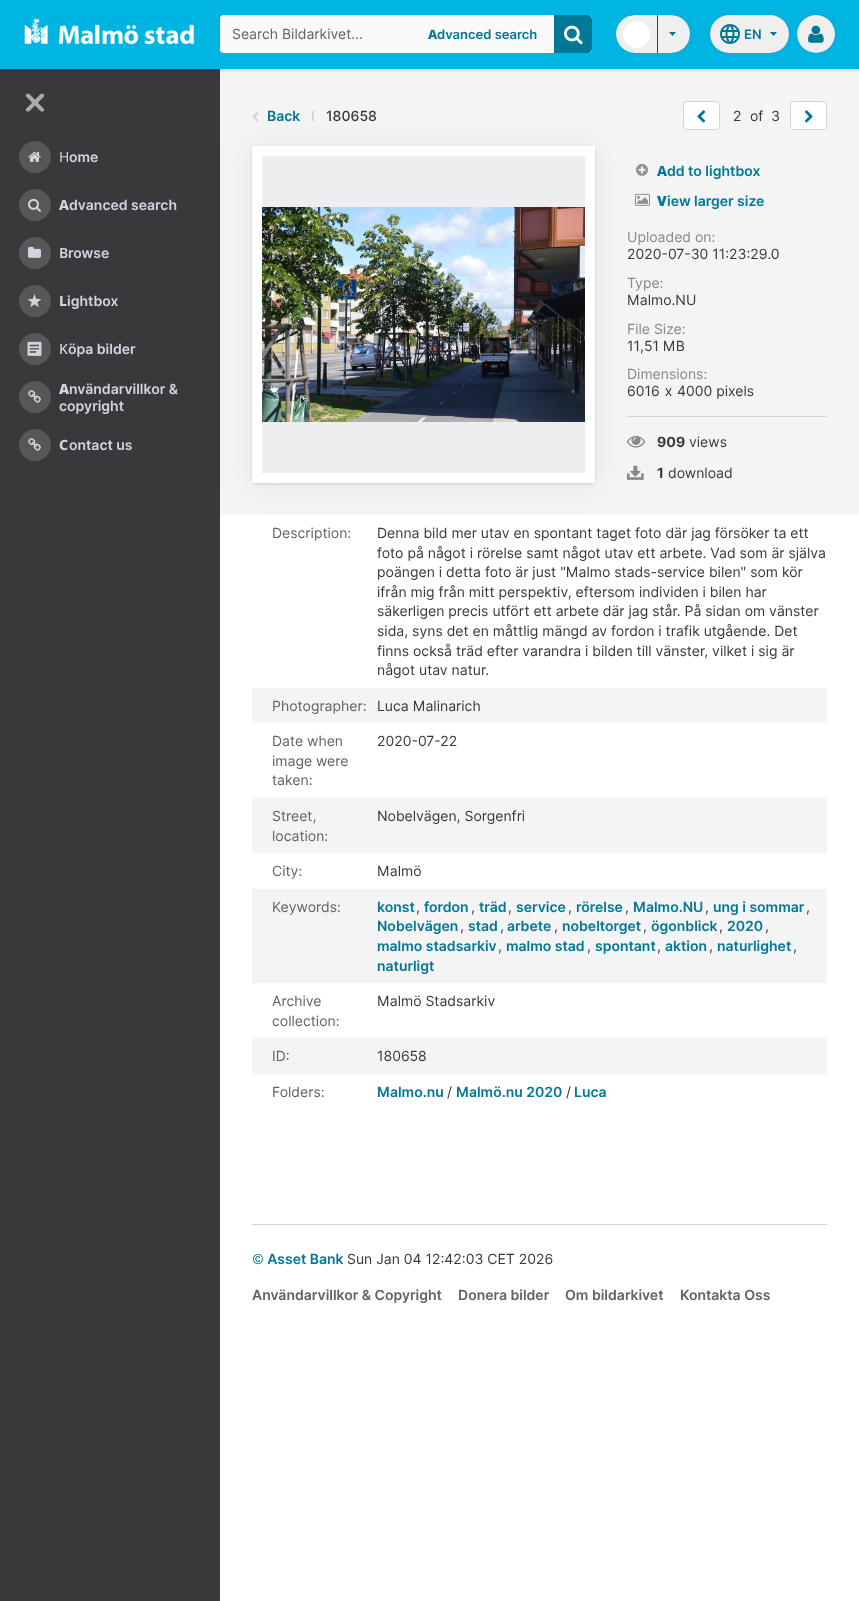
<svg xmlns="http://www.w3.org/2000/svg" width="859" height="1601">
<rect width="100%" height="100%" fill="#fff"/>
<rect x="220" y="69" width="639" height="446" fill="#f4f4f5"/>
<image x="252" y="112" width="7" height="10" href="media/11.png"/>
<rect x="312" y="111" width="2" height="10" fill="#d3d3df"/>
<rect x="627" y="416" width="200" height="1" fill="#d3d3df"/>
<image x="627" y="436" width="18" height="12" href="media/17.png"/>
<image x="627" y="465" width="17" height="15" href="media/18.png"/>
<rect x="252" y="148" width="343" height="337" rx="4" fill="#0000000f" filter="blur(17.5px)"/>
<rect y="69" width="220" height="1532" fill="#39393c"/>
<rect y="1" width="859" height="69" fill="#2d2d2d40" filter="blur(1.5px)"/>
<rect width="859" height="69" fill="#00b5e2"/>
<image x="24" y="18" width="170" height="27" href="media/1.png"/>
<rect x="220" y="15" width="372" height="38" rx="4" fill="#969696" filter="blur(0.5px)"/>
<rect x="220" y="15" width="372" height="38" rx="4" fill="#f9f9f9"/>
<text x="232" y="39" style="font-family:Inter;font-size:14px;fill:#62626a">Search Bildarkivet...</text>
<text x="428" y="39" style="font-family:Noto Sans;font-size:13px;font-weight:800;fill:#007896">A</text>
<text x="437" y="39" style="font-family:Inter;font-size:13px;font-weight:600;fill:#007896">dvanced search</text>
<path d="M554 15h34c2 0 4 2 4 4v30c0 2-2 4-4 4h-34z" fill="#007896"/>
<image x="564" y="25" width="19" height="20" href="media/2.png"/>
<rect x="616" y="15" width="74" height="38" rx="19" fill="#0000000d" filter="blur(3px)"/>
<rect x="616" y="15" width="74" height="38" rx="19" fill="#00000080" filter="blur(0.5px)"/>
<path d="M635 15h22v38h-22c-10.5 0-19-8.5-19-19c0-10.5 8.5-19 19-19z" fill="#efefef"/>
<circle cx="636.5" cy="34.5" r="13.5" fill="#fff"/>
<path d="M658 15h13c10.5 0 19 8.5 19 19c0 10.5-8.5 19-19 19h-13z" fill="#efefef"/>
<path d="M672.5 36l3.5-4h-7z" fill="#007896" fill-rule="evenodd"/>
<rect x="710" y="15" width="79" height="38" rx="19" fill="#0000000d" filter="blur(3px)"/>
<rect x="710" y="15" width="79" height="38" rx="19" fill="#00000080" filter="blur(0.5px)"/>
<rect x="710" y="15" width="79" height="38" rx="19" fill="#efefef"/>
<image x="720" y="24" width="20" height="20" href="media/3.png"/>
<text x="744" y="39" style="font-family:Inter;font-size:13px;font-weight:600;fill:#007896">EN</text>
<path d="M773.5 36l3.5-4h-7z" fill="#007896" fill-rule="evenodd"/>
<rect x="797" y="15" width="38" height="38" rx="19" fill="#0000000d" filter="blur(3px)"/>
<rect x="797" y="15" width="38" height="38" rx="19" fill="#00000080" filter="blur(0.5px)"/>
<circle cx="816" cy="34" r="19" fill="#efefef"/>
<image x="808" y="25" width="16" height="18" href="media/4.png"/>
<path d="M29.5 94l14 14.5c1 .5 1 2 0 2.5c-1 1-2 1-3 0l-14-14c-1-1-1-2 0-3c1-.5 2-.5 3 0z" fill="#aaa"/>
<path d="M26.5 108.5l14-14.5c1-.5 2-.5 3 0c1 1 1 2 0 3l-14 14c-1 1-2 1-3 0c-1-.5-1-2 0-2.5z" fill="#aaa"/>
<circle cx="35" cy="157" r="16" fill="#575757"/>
<image x="28" y="151" width="13" height="11" href="media/5.png"/>
<text x="59" y="162" style="font-family:Noto Sans;font-size:14px;fill:#d3d3df">H</text>
<text x="69" y="162" style="font-family:Inter;font-size:14px;font-weight:600;fill:#d3d3df">ome</text>
<circle cx="35" cy="205" r="16" fill="#575757"/>
<image x="28" y="198" width="13" height="14" href="media/6.png"/>
<text x="59" y="210" style="font-family:Noto Sans;font-size:14px;font-weight:800;fill:#d3d3df">A</text>
<text x="69" y="210" style="font-family:Inter;font-size:14px;font-weight:600;fill:#d3d3df">dvanced search</text>
<circle cx="35" cy="253" r="16" fill="#575757"/>
<image x="28" y="246" width="13" height="12" href="media/7.png"/>
<text x="59" y="258" style="font-family:Noto Sans;font-size:14px;font-weight:600;fill:#d3d3df">B</text>
<text x="68" y="258" style="font-family:Inter;font-size:14px;font-weight:600;fill:#d3d3df">rowse</text>
<circle cx="35" cy="301" r="16" fill="#575757"/>
<image x="27" y="294" width="15" height="14" href="media/8.png"/>
<text x="59" y="306" style="font-family:Noto Sans;font-size:14px;font-weight:800;fill:#d3d3df">L</text>
<text x="67" y="306" style="font-family:Inter;font-size:14px;font-weight:600;fill:#d3d3df">ightbox</text>
<circle cx="35" cy="349" r="16" fill="#575757"/>
<image x="27" y="341" width="15" height="15" href="media/9.png"/>
<text x="59" y="354" style="font-family:Noto Sans;font-size:14px;font-weight:500;fill:#d3d3df">K</text>
<text x="68" y="354" style="font-family:Inter;font-size:14px;font-weight:600;fill:#d3d3df">öpa bilder</text>
<circle cx="35" cy="397" r="16" fill="#575757"/>
<image x="28" y="390" width="13" height="13" href="media/10.png"/>
<text x="59" y="394" style="font-family:Noto Sans;font-size:14px;font-weight:900;fill:#d3d3df">A</text>
<text x="69" y="394" style="font-family:Inter;font-size:14px;font-weight:600;fill:#d3d3df">nvändarvillkor &amp;</text>
<text x="59" y="411" style="font-family:Inter;font-size:14px;font-weight:600;fill:#d3d3df">copyright</text>
<circle cx="35" cy="445" r="16" fill="#575757"/>
<image x="28" y="438" width="13" height="13" href="media/10.png"/>
<text x="59" y="450" style="font-family:Noto Sans;font-size:14px;font-weight:800;fill:#d3d3df">C</text>
<text x="69" y="450" style="font-family:Inter;font-size:14px;font-weight:600;fill:#d3d3df">ontact us</text>
<text x="267" y="121" style="font-family:Inter;font-size:14px;font-weight:600;fill:#007896">Back</text>
<text x="326" y="121" style="font-family:Inter;font-size:14px;font-weight:500;fill:#39393c">180658</text>
<rect x="683.5" y="101.5" width="36" height="28" rx="3.5" fill="#fff" stroke="#d3d3df"/>
<image x="697" y="110" width="9" height="13" href="media/12.png"/>
<text x="733" y="121" style="font-family:Inter;font-size:14px;fill:#39393c">2</text>
<text x="750" y="121" style="font-family:Inter;font-size:14px;fill:#39393c">of</text>
<text x="771" y="121" style="font-family:Inter;font-size:14px;fill:#39393c">3</text>
<rect x="790.5" y="101.5" width="36" height="28" rx="3.5" fill="#fff" stroke="#d3d3df"/>
<image x="804" y="110" width="9" height="13" href="media/13.png"/>
<rect x="252" y="147" width="343" height="337" rx="4" fill="#00000021" filter="blur(1.5px)"/>
<rect x="262" y="156" width="323" height="317" fill="#eeeef1"/>
<path d="M257 151h333v327h-333z" fill="none" stroke="#fff" stroke-width="10"/>
<image x="262" y="207" width="323" height="215" href="media/14.png"/>
<image x="636" y="163" width="12" height="13" href="media/15.png"/>
<text x="657" y="176" style="font-family:Noto Sans;font-size:14px;font-weight:800;fill:#007896">A</text>
<text x="667" y="176" style="font-family:Inter;font-size:14px;font-weight:600;fill:#007896">dd to lightbox</text>
<image x="635" y="193" width="15" height="13" href="media/16.png"/>
<text x="657" y="206" style="font-family:Noto Sans;font-size:14px;font-weight:900;fill:#007896">V</text>
<text x="667" y="206" style="font-family:Inter;font-size:14px;font-weight:600;fill:#007896">iew larger size</text>
<text x="627" y="242" style="font-family:Inter;font-size:14px;fill:#888">Uploaded on:</text>
<text x="627" y="259" style="font-family:Inter;font-size:14px;fill:#39393c">2020-07-30 11:23:29.0</text>
<text x="627" y="288" style="font-family:Inter;font-size:14px;fill:#888">Type:</text>
<text x="627" y="305" style="font-family:Inter;font-size:14px;fill:#39393c">Malmo.NU</text>
<text x="627" y="334" style="font-family:Inter;font-size:14px;fill:#888">File Size:</text>
<text x="627" y="351" style="font-family:Inter;font-size:14px;fill:#39393c">11,51 MB</text>
<text x="627" y="379" style="font-family:Inter;font-size:14px;fill:#888">Dimensions:</text>
<text x="627" y="396" word-spacing="1" style="font-family:Inter;font-size:14px;fill:#39393c">6016 x</text>
<text x="677" y="396" style="font-family:Inter;font-size:14px;fill:#39393c">4000 pixels</text>
<text x="657" y="447" style="font-family:Inter;font-size:14px;font-weight:bold;fill:#39393c">909</text>
<text x="689" y="447" style="font-family:Inter;font-size:14px;fill:#39393c">views</text>
<text x="657" y="478" style="font-family:Inter;font-size:14px;font-weight:bold;fill:#39393c">1</text>
<text x="668" y="478" style="font-family:Inter;font-size:14px;fill:#39393c">download</text>
<text x="272" y="538" style="font-family:Inter;font-size:14px;fill:#62626a">Description:</text>
<text x="377" y="538" style="font-family:Inter;font-size:14px;fill:#39393c">Denna bild mer utav en spontant taget foto där jag försöker ta ett</text>
<text x="377" y="558" style="font-family:Inter;font-size:14px;fill:#39393c">foto på något i rörelse samt något utav ett arbete. Vad som är själva</text>
<text x="377" y="577" style="font-family:Inter;font-size:14px;fill:#39393c">poängen i detta foto är just "Malmo stads-service bilen" som kör</text>
<text x="377" y="597" style="font-family:Inter;font-size:14px;fill:#39393c">ifrån mig från mitt perspektiv, eftersom individen i bilen har</text>
<text x="377" y="616" style="font-family:Inter;font-size:14px;fill:#39393c">säkerligen precis utfört ett arbete där jag står. På sidan om vänster</text>
<text x="377" y="636" style="font-family:Inter;font-size:14px;fill:#39393c">sida, syns det en måttlig mängd av fordon i trafik utgående. Det</text>
<text x="377" y="656" style="font-family:Inter;font-size:14px;fill:#39393c">finns också träd efter varandra i bilden till vänster, vilket i sig är</text>
<text x="377" y="675" style="font-family:Inter;font-size:14px;fill:#39393c">något utav natur.</text>
<rect x="252" y="688" width="575" height="35" fill="#f4f4f5"/>
<text x="272" y="711" style="font-family:Inter;font-size:14px;fill:#62626a">Photographer:</text>
<text x="377" y="711" style="font-family:Inter;font-size:14px;fill:#39393c">Luca Malinarich</text>
<text x="272" y="746" style="font-family:Inter;font-size:14px;fill:#62626a">Date when</text>
<text x="272" y="766" style="font-family:Inter;font-size:14px;fill:#62626a">image were</text>
<text x="272" y="785" style="font-family:Inter;font-size:14px;fill:#62626a">taken:</text>
<text x="377" y="746" style="font-family:Inter;font-size:14px;fill:#39393c">2020-07-22</text>
<rect x="252" y="798" width="575" height="55" fill="#f4f4f5"/>
<text x="272" y="821" style="font-family:Inter;font-size:14px;fill:#62626a">Street,</text>
<text x="272" y="841" style="font-family:Inter;font-size:14px;fill:#62626a">location:</text>
<text x="377" y="821" style="font-family:Inter;font-size:14px;fill:#39393c">Nobelvägen, Sorgenfri</text>
<text x="272" y="876" style="font-family:Inter;font-size:14px;fill:#62626a">City:</text>
<text x="377" y="876" style="font-family:Inter;font-size:14px;fill:#39393c">Malmö</text>
<rect x="252" y="889" width="575" height="94" fill="#f4f4f5"/>
<text x="272" y="912" style="font-family:Inter;font-size:14px;fill:#62626a">Keywords:</text>
<text x="377" y="912" style="font-family:Inter;font-size:14px;font-weight:600;fill:#007896">konst</text>
<text x="416" y="912" style="font-family:Inter;font-size:14px;fill:#39393c">,</text>
<text x="424" y="912" style="font-family:Inter;font-size:14px;font-weight:600;fill:#007896">fordon</text>
<text x="471" y="912" style="font-family:Inter;font-size:14px;fill:#39393c">,</text>
<text x="479" y="912" style="font-family:Inter;font-size:14px;font-weight:600;fill:#007896">träd</text>
<text x="508" y="912" style="font-family:Inter;font-size:14px;fill:#39393c">,</text>
<text x="516" y="912" style="font-family:Inter;font-size:14px;font-weight:600;fill:#007896">service</text>
<text x="568" y="912" style="font-family:Inter;font-size:14px;fill:#39393c">,</text>
<text x="576" y="912" style="font-family:Inter;font-size:14px;font-weight:600;fill:#007896">rörelse</text>
<text x="625" y="912" style="font-family:Inter;font-size:14px;fill:#39393c">,</text>
<text x="633" y="912" style="font-family:Inter;font-size:14px;font-weight:600;fill:#007896">Malmo.NU</text>
<text x="705" y="912" style="font-family:Inter;font-size:14px;fill:#39393c">,</text>
<text x="713" y="912" style="font-family:Inter;font-size:14px;font-weight:600;fill:#007896">ung i sommar</text>
<text x="806" y="912" style="font-family:Inter;font-size:14px;fill:#39393c">,</text>
<text x="377" y="931" style="font-family:Inter;font-size:14px;font-weight:600;fill:#007896">Nobelvägen</text>
<text x="460" y="931" style="font-family:Inter;font-size:14px;fill:#39393c">,</text>
<text x="468" y="931" style="font-family:Inter;font-size:14px;font-weight:600;fill:#007896">stad</text>
<text x="500" y="931" style="font-family:Inter;font-size:14px;fill:#39393c">,</text>
<text x="507" y="931" style="font-family:Inter;font-size:14px;font-weight:600;fill:#007896">arbete</text>
<text x="554" y="931" style="font-family:Inter;font-size:14px;fill:#39393c">,</text>
<text x="562" y="931" style="font-family:Inter;font-size:14px;font-weight:600;fill:#007896">nobeltorget</text>
<text x="643" y="931" style="font-family:Inter;font-size:14px;fill:#39393c">,</text>
<text x="651" y="931" style="font-family:Inter;font-size:14px;font-weight:600;fill:#007896">ögonblick</text>
<text x="719" y="931" style="font-family:Inter;font-size:14px;fill:#39393c">,</text>
<text x="727" y="931" style="font-family:Inter;font-size:14px;font-weight:600;fill:#007896">2020</text>
<text x="765" y="931" style="font-family:Inter;font-size:14px;fill:#39393c">,</text>
<text x="377" y="951" style="font-family:Inter;font-size:14px;font-weight:600;fill:#007896">malmo stadsarkiv</text>
<text x="498" y="951" style="font-family:Inter;font-size:14px;fill:#39393c">,</text>
<text x="506" y="951" style="font-family:Inter;font-size:14px;font-weight:600;fill:#007896">malmo stad</text>
<text x="587" y="951" style="font-family:Inter;font-size:14px;fill:#39393c">,</text>
<text x="595" y="951" style="font-family:Inter;font-size:14px;font-weight:600;fill:#007896">spontant</text>
<text x="657" y="951" style="font-family:Inter;font-size:14px;fill:#39393c">,</text>
<text x="665" y="951" style="font-family:Inter;font-size:14px;font-weight:600;fill:#007896">aktion</text>
<text x="709" y="951" style="font-family:Inter;font-size:14px;fill:#39393c">,</text>
<text x="717" y="951" style="font-family:Inter;font-size:14px;font-weight:600;fill:#007896">naturlighet</text>
<text x="793" y="951" style="font-family:Inter;font-size:14px;fill:#39393c">,</text>
<text x="377" y="971" style="font-family:Inter;font-size:14px;font-weight:600;fill:#007896">naturligt</text>
<text x="272" y="1006" style="font-family:Inter;font-size:14px;fill:#62626a">Archive</text>
<text x="272" y="1026" style="font-family:Inter;font-size:14px;fill:#62626a">collection:</text>
<text x="377" y="1006" style="font-family:Inter;font-size:14px;fill:#39393c">Malmö Stadsarkiv</text>
<rect x="252" y="1038" width="575" height="36" fill="#f4f4f5"/>
<text x="272" y="1061" style="font-family:Inter;font-size:14px;fill:#62626a">ID:</text>
<text x="377" y="1061" style="font-family:Inter;font-size:14px;fill:#39393c">180658</text>
<text x="272" y="1097" style="font-family:Inter;font-size:14px;fill:#62626a">Folders:</text>
<text x="377" y="1097" style="font-family:Inter;font-size:14px;font-weight:600;fill:#007896">Malmo.nu</text>
<text x="447" y="1097" style="font-family:Inter;font-size:14px;fill:#39393c">/</text>
<text x="456" y="1097" style="font-family:Inter;font-size:14px;font-weight:600;fill:#007896">Malmö.nu 2020</text>
<text x="566" y="1097" style="font-family:Inter;font-size:14px;fill:#39393c">/</text>
<text x="574" y="1097" style="font-family:Inter;font-size:14px;font-weight:600;fill:#007896">Luca</text>
<rect x="252" y="1224" width="575" height="1" fill="#d3d3df"/>
<text x="252" y="1264" style="font-family:Inter;font-size:14px;font-weight:600;fill:#007896">© Asset Bank</text>
<text x="347" y="1264" style="font-family:Inter;font-size:14px;fill:#39393c">Sun Jan 04 12:42:03 CET 2026</text>
<text x="252" y="1300" style="font-family:Inter;font-size:14px;font-weight:600;fill:#62626a">Användarvillkor &amp; Copyright</text>
<text x="458" y="1300" style="font-family:Inter;font-size:14px;font-weight:600;fill:#62626a">Donera bilder</text>
<text x="565" y="1300" style="font-family:Inter;font-size:14px;font-weight:600;fill:#62626a">Om bildarkivet</text>
<text x="680" y="1300" style="font-family:Inter;font-size:14px;font-weight:600;fill:#62626a">Kontakta Oss</text>
</svg>
